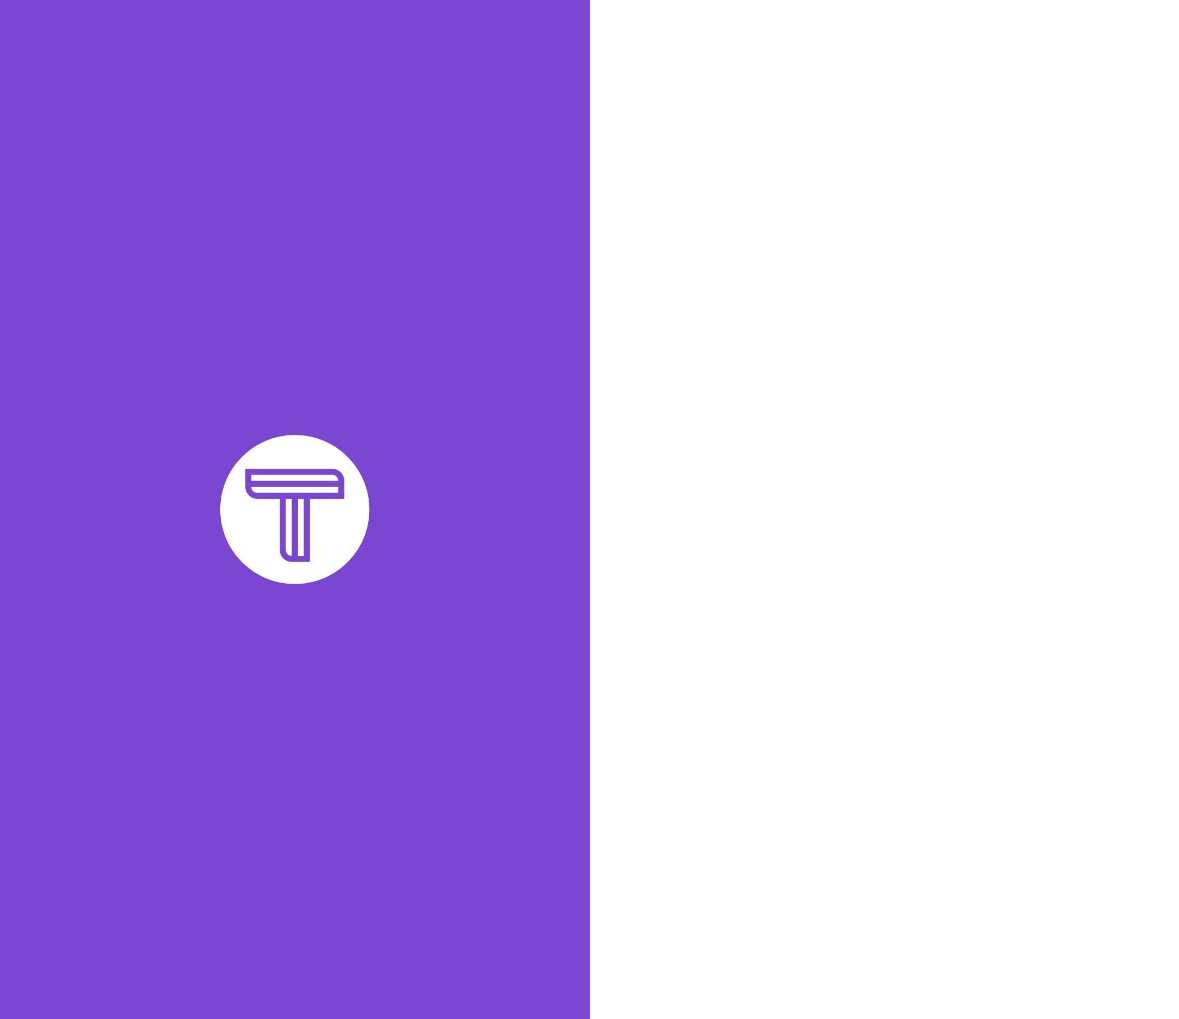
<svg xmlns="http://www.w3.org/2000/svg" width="1179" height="1019">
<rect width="100%" height="100%" fill="#fff"/>
<image x="0" y="0" width="590" height="1019" href="media/1.png"/>
</svg>
